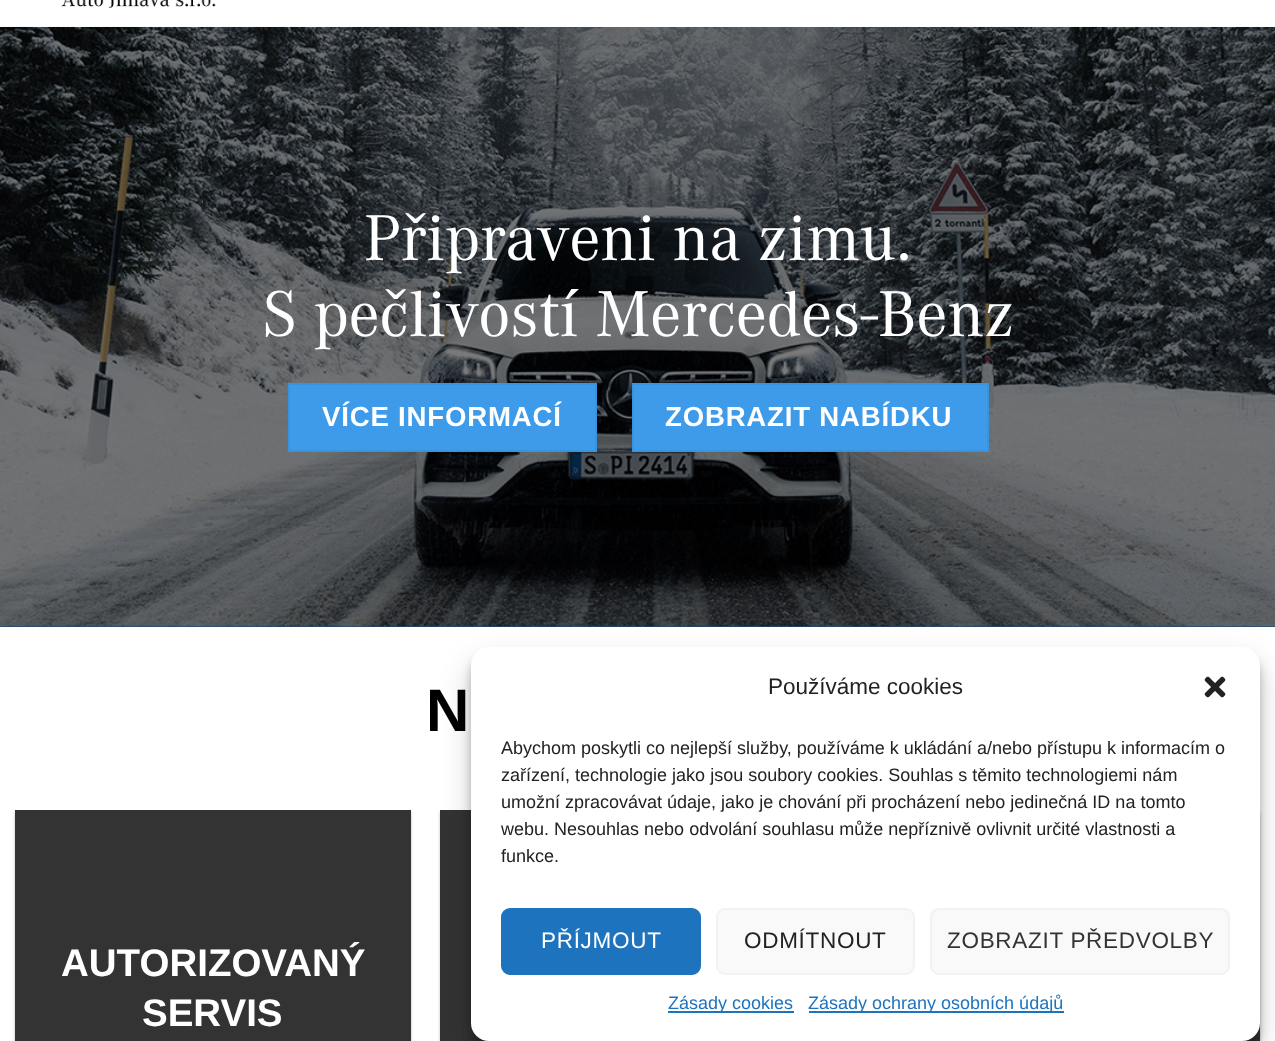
<svg xmlns="http://www.w3.org/2000/svg" width="1275" height="1041">
<rect width="100%" height="100%" fill="#fff"/>
<image x="61" y="0" width="155" height="8" href="media/1.png"/>
<rect y="626" width="1275" height="1" fill="#1d4a70"/>
<image x="0" y="26" width="1275" height="601" href="media/2.png"/>
<rect y="26" width="1275" height="1" fill="#ffffffe6"/>
<text x="364" y="260" style="font-family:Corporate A;font-size:67.25px;fill:#fff">Připraveni na zimu.</text>
<text x="262" y="336" style="font-family:Corporate A;font-size:67.25px;fill:#fff">S pečlivostí Mercedes-Benz</text>
<rect x="289" y="384" width="307" height="67" fill="#3d9be9" stroke="#3a93dd" stroke-width="2"/>
<text x="322" y="426" style="font-family:Liberation Sans;font-size:27.6px;font-weight:bold;letter-spacing:0.8px;fill:#fff">VÍCE INFORMACÍ</text>
<rect x="633" y="384" width="355" height="67" fill="#3d9be9" stroke="#3a93dd" stroke-width="2"/>
<text x="665" y="426" style="font-family:Liberation Sans;font-size:27.6px;font-weight:bold;letter-spacing:0.8px;fill:#fff">ZOBRAZIT NABÍDKU</text>
<text x="426" y="731" style="font-family:Liberation Sans;font-size:60px;font-weight:bold;fill:#000">N</text>
<rect x="15" y="812" width="396" height="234" fill="#0000003d" filter="blur(1.5px)"/>
<rect x="15" y="810" width="396" height="231" fill="#333"/>
<text x="61" y="976" style="font-family:Liberation Sans;font-size:38.5px;font-weight:bold;fill:#fff">AUTORIZOVANÝ</text>
<text x="142" y="1026" style="font-family:Liberation Sans;font-size:38.5px;font-weight:bold;fill:#fff">SERVIS</text>
<rect x="440" y="812" width="396" height="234" fill="#0000003d" filter="blur(1.5px)"/>
<rect x="440" y="810" width="49" height="231" fill="#333"/>
<rect x="864" y="812" width="396" height="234" fill="#0000003d" filter="blur(1.5px)"/>
<rect x="1242" y="1023" width="18" height="18" fill="#333"/>
<rect x="471" y="656" width="789" height="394" rx="18" fill="#0000003b" filter="blur(4.5px)"/>
<rect x="471" y="662" width="789" height="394" rx="18" fill="#00000030" filter="blur(15px)"/>
<rect x="471" y="647" width="789" height="394" rx="18" fill="#fff"/>
<text x="768" y="694" style="font-family:Liberation Sans;font-size:22.5px;fill:#222">Používáme cookies</text>
<image x="1204" y="676" width="22" height="22" href="media/3.png"/>
<text x="501" y="754" style="font-family:Liberation Sans;font-size:18px;fill:#222">Abychom poskytli co nejlepší služby, používáme k ukládání a/nebo přístupu k informacím o</text>
<text x="501" y="781" style="font-family:Liberation Sans;font-size:18px;fill:#222">zařízení, technologie jako jsou soubory cookies. Souhlas s těmito technologiemi nám</text>
<text x="501" y="808" style="font-family:Liberation Sans;font-size:18px;fill:#222">umožní zpracovávat údaje, jako je chování při procházení nebo jedinečná ID na tomto</text>
<text x="501" y="835" style="font-family:Liberation Sans;font-size:18px;fill:#222">webu. Nesouhlas nebo odvolání souhlasu může nepříznivě ovlivnit určité vlastnosti a</text>
<text x="501" y="862" style="font-family:Liberation Sans;font-size:18px;fill:#222">funkce.</text>
<rect x="502" y="909" width="198" height="65" rx="8" fill="#1e73be" stroke="#1e73be" stroke-width="2"/>
<text x="541" y="948" style="font-family:Liberation Sans;font-size:22.5px;letter-spacing:0.7px;fill:#fff">PŘÍJMOUT</text>
<rect x="717" y="909" width="197" height="65" rx="8" fill="#f9f9f9" stroke="#f2f2f2" stroke-width="2"/>
<text x="744" y="948" style="font-family:Liberation Sans;font-size:22.5px;letter-spacing:0.7px;fill:#222">ODMÍTNOUT</text>
<rect x="931" y="909" width="298" height="65" rx="8" fill="#f9f9f9" stroke="#f2f2f2" stroke-width="2"/>
<text x="947" y="948" style="font-family:Liberation Sans;font-size:22.5px;letter-spacing:0.7px;fill:#333">ZOBRAZIT PŘEDVOLBY</text>
<rect x="668" y="1011" width="126" height="2" fill="#1e73be"/>
<text x="668" y="1009" style="font-family:Liberation Sans;font-size:18px;fill:#1e73be">Zásady cookies</text>
<rect x="809" y="1011" width="255" height="2" fill="#1e73be"/>
<text x="808" y="1009" style="font-family:Liberation Sans;font-size:18px;fill:#1e73be">Zásady ochrany osobních údajů</text>
</svg>
